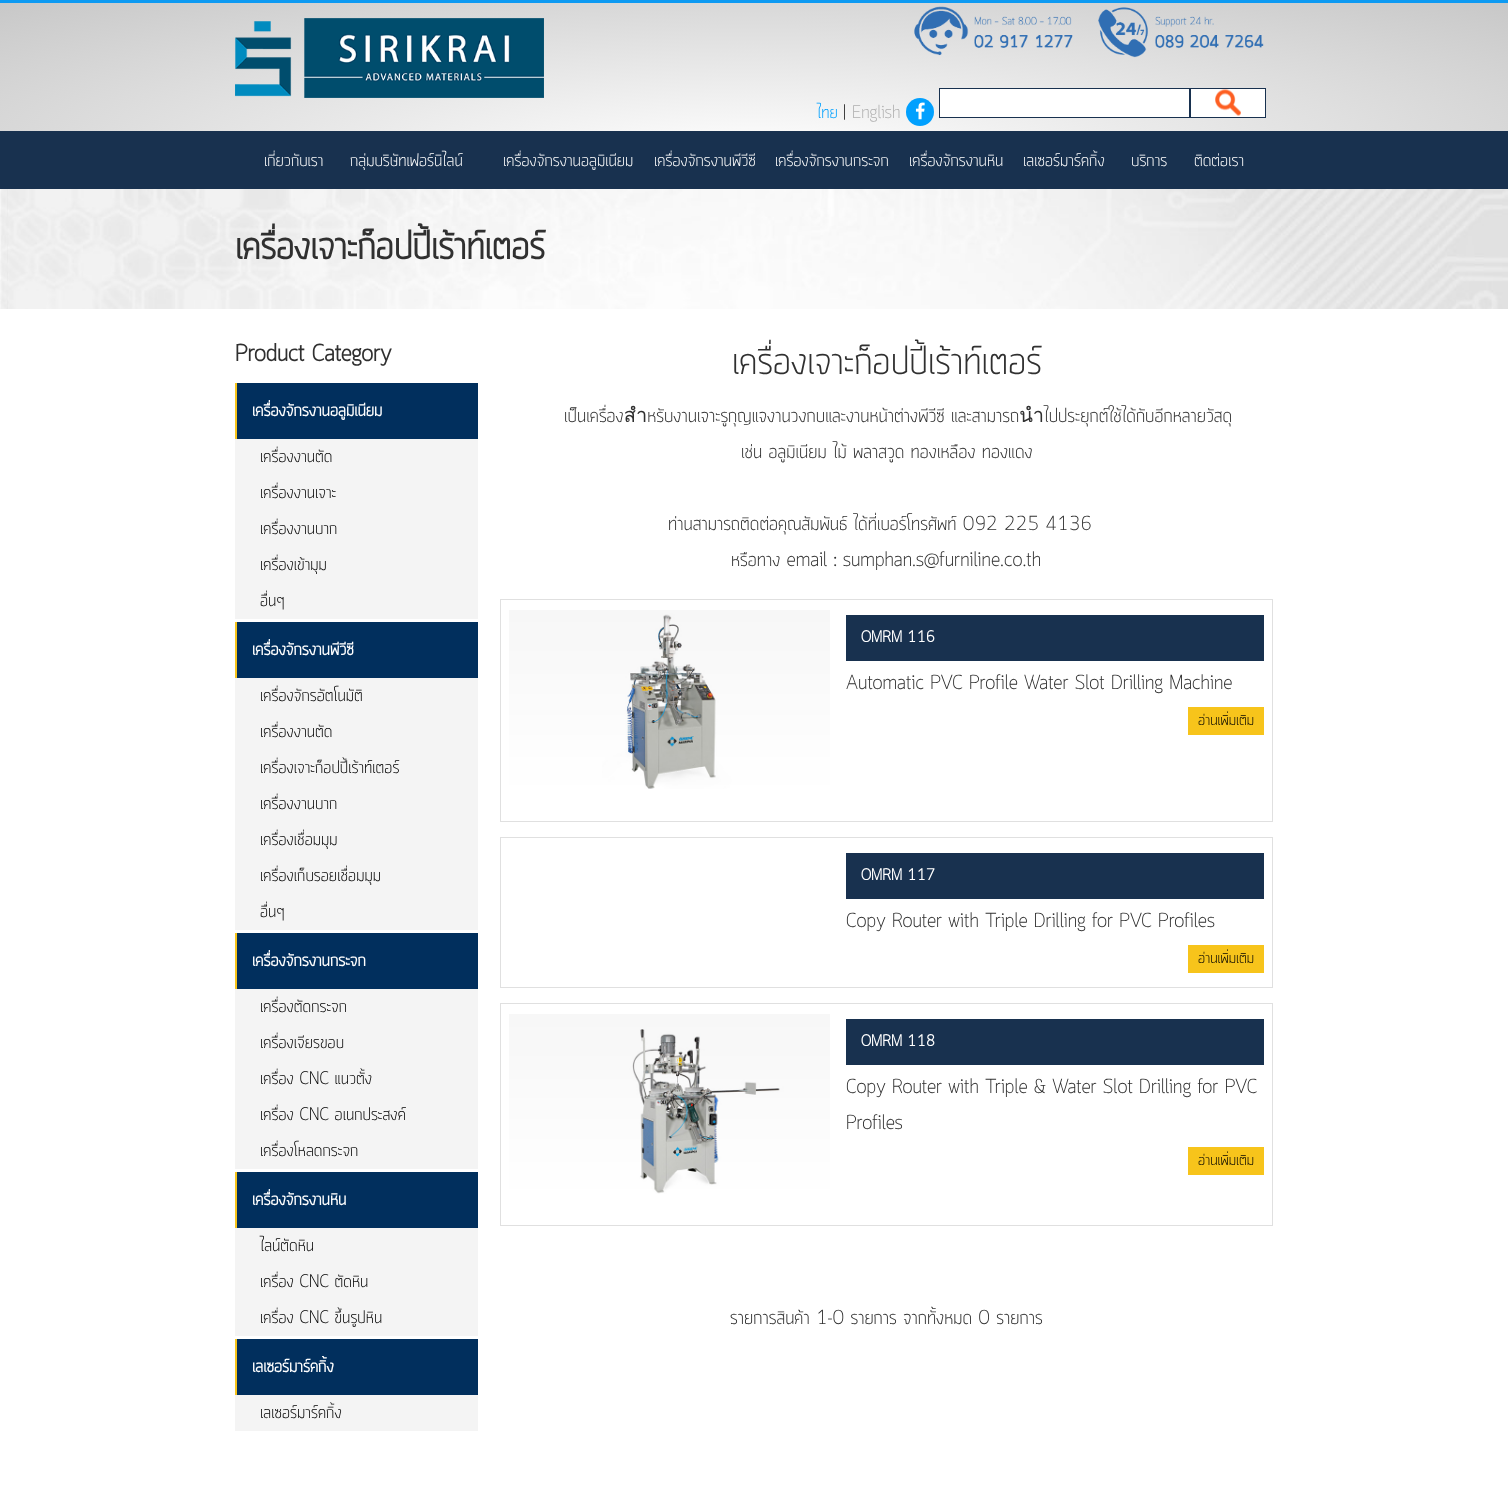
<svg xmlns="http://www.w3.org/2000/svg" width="1508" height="1504">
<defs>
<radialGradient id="g1" gradientUnits="userSpaceOnUse" cx="0" cy="0" r="1" gradientTransform="matrix(1066 0 0 216 754 156)"><stop offset="0" stop-color="#fff"/><stop offset="1" stop-color="#c8c8c8"/></radialGradient>
</defs>
<rect width="100%" height="100%" fill="#fff"/>
<rect y="3" width="1508" height="128" fill="url(#g1)"/>
<rect width="1508" height="3" fill="#0d9af2"/>
<image x="235" y="18" width="309" height="80" href="media/1.png"/>
<image x="914" y="6" width="159" height="50" href="media/2.png"/>
<image x="1098" y="7" width="166" height="51" href="media/3.png"/>
<text x="817" y="118" style="font-family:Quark;font-size:18px;font-weight:300;fill:#01a0fe">ไทย</text>
<text x="843" y="118" style="font-family:Quark;font-size:18px;font-weight:300;fill:#111">|</text>
<text x="852" y="118" style="font-family:Quark;font-size:18px;font-weight:300;fill:#b0b0b0">English</text>
<circle cx="920" cy="112" r="14" fill="#01a0fe"/>
<image x="915" y="102" width="10" height="18" href="media/4.png"/>
<rect x="939.5" y="88.5" width="250" height="29" fill="#fff" stroke="#18314f"/>
<rect x="1191" y="89" width="74" height="28" fill="#fff"/>
<image x="1215" y="89" width="26" height="27" href="media/5.png"/>
<rect x="1190.5" y="88.5" width="75" height="29" fill="none" stroke="#18314f"/>
<rect y="131" width="1508" height="58" fill="#18314f"/>
<text x="264" y="166" style="font-family:Quark;font-size:18px;font-weight:300;fill:#fff">เกี่ยวกับเรา</text>
<text x="350" y="166" style="font-family:Quark;font-size:18px;font-weight:300;fill:#fff">กลุ่มบริษัทเฟอร์นิไลน์</text>
<text x="503" y="166" style="font-family:Quark;font-size:18px;font-weight:300;fill:#fff">เครื่องจักรงานอลูมิเนียม</text>
<text x="654" y="166" style="font-family:Quark;font-size:18px;font-weight:300;fill:#fff">เครื่องจักรงานพีวีซี</text>
<text x="775" y="166" style="font-family:Quark;font-size:18px;font-weight:300;fill:#fff">เครื่องจักรงานกระจก</text>
<text x="909" y="166" style="font-family:Quark;font-size:18px;font-weight:300;fill:#fff">เครื่องจักรงานหิน</text>
<text x="1023" y="166" style="font-family:Quark;font-size:18px;font-weight:300;fill:#fff">เลเซอร์มาร์คกิ้ง</text>
<text x="1131" y="166" style="font-family:Quark;font-size:18px;font-weight:300;fill:#fff">บริการ</text>
<text x="1194" y="166" style="font-family:Quark;font-size:18px;font-weight:300;fill:#fff">ติดต่อเรา</text>
<image x="0" y="189" width="1508" height="120" href="media/6.png"/>
<text x="235" y="259" style="font-family:Quark;font-size:40px;font-weight:bold;fill:#303030">เครื่องเจาะก็อปปี้เร้าท์เตอร์</text>
<text x="235" y="361" style="font-family:Quark;font-size:23.5px;font-weight:bold;fill:#303030">Product Category</text>
<rect x="235" y="439" width="243" height="180" fill="#f4f4f4"/>
<rect x="237" y="383" width="241" height="56" fill="#012f5d"/>
<rect x="235" y="383" width="2" height="56" fill="#f7c41b"/>
<text x="252" y="416" style="font-family:Quark;font-size:18px;font-weight:bold;fill:#fff">เครื่องจักรงานอลูมิเนียม</text>
<text x="260" y="462" style="font-family:Quark;font-size:18px;font-weight:300;fill:#000">เครื่องงานตัด</text>
<text x="260" y="498" style="font-family:Quark;font-size:18px;font-weight:300;fill:#000">เครื่องงานเจาะ</text>
<text x="260" y="534" style="font-family:Quark;font-size:18px;font-weight:300;fill:#000">เครื่องงานบาก</text>
<text x="260" y="570" style="font-family:Quark;font-size:18px;font-weight:300;fill:#000">เครื่องเข้ามุม</text>
<text x="260" y="606" style="font-family:Quark;font-size:18px;font-weight:300;fill:#000">อื่นๆ</text>
<rect x="235" y="678" width="243" height="252" fill="#f4f4f4"/>
<rect x="237" y="622" width="241" height="56" fill="#012f5d"/>
<rect x="235" y="622" width="2" height="56" fill="#f7c41b"/>
<text x="252" y="655" style="font-family:Quark;font-size:18px;font-weight:bold;fill:#fff">เครื่องจักรงานพีวีซี</text>
<text x="260" y="701" style="font-family:Quark;font-size:18px;font-weight:300;fill:#000">เครื่องจักรอัตโนมัติ</text>
<text x="260" y="737" style="font-family:Quark;font-size:18px;font-weight:300;fill:#000">เครื่องงานตัด</text>
<text x="260" y="773" style="font-family:Quark;font-size:18px;font-weight:300;fill:#000">เครื่องเจาะก็อปปี้เร้าท์เตอร์</text>
<text x="260" y="809" style="font-family:Quark;font-size:18px;font-weight:300;fill:#000">เครื่องงานบาก</text>
<text x="260" y="845" style="font-family:Quark;font-size:18px;font-weight:300;fill:#000">เครื่องเชื่อมมุม</text>
<text x="260" y="881" style="font-family:Quark;font-size:18px;font-weight:300;fill:#000">เครื่องเก็บรอยเชื่อมมุม</text>
<text x="260" y="917" style="font-family:Quark;font-size:18px;font-weight:300;fill:#000">อื่นๆ</text>
<rect x="235" y="989" width="243" height="180" fill="#f4f4f4"/>
<rect x="237" y="933" width="241" height="56" fill="#012f5d"/>
<rect x="235" y="933" width="2" height="56" fill="#f7c41b"/>
<text x="252" y="966" style="font-family:Quark;font-size:18px;font-weight:bold;fill:#fff">เครื่องจักรงานกระจก</text>
<text x="260" y="1012" style="font-family:Quark;font-size:18px;font-weight:300;fill:#000">เครื่องตัดกระจก</text>
<text x="260" y="1048" style="font-family:Quark;font-size:18px;font-weight:300;fill:#000">เครื่องเจียรขอบ</text>
<text x="260" y="1084" style="font-family:Quark;font-size:18px;font-weight:300;fill:#000">เครื่อง CNC แนวตั้ง</text>
<text x="260" y="1120" style="font-family:Quark;font-size:18px;font-weight:300;fill:#000">เครื่อง CNC อเนกประสงค์</text>
<text x="260" y="1156" style="font-family:Quark;font-size:18px;font-weight:300;fill:#000">เครื่องโหลดกระจก</text>
<rect x="235" y="1228" width="243" height="108" fill="#f4f4f4"/>
<rect x="237" y="1172" width="241" height="56" fill="#012f5d"/>
<rect x="235" y="1172" width="2" height="56" fill="#f7c41b"/>
<text x="252" y="1205" style="font-family:Quark;font-size:18px;font-weight:bold;fill:#fff">เครื่องจักรงานหิน</text>
<text x="260" y="1251" style="font-family:Quark;font-size:18px;font-weight:300;fill:#000">ไลน์ตัดหิน</text>
<text x="260" y="1287" style="font-family:Quark;font-size:18px;font-weight:300;fill:#000">เครื่อง CNC ตัดหิน</text>
<text x="260" y="1323" style="font-family:Quark;font-size:18px;font-weight:300;fill:#000">เครื่อง CNC ขึ้นรูปหิน</text>
<rect x="235" y="1395" width="243" height="36" fill="#f4f4f4"/>
<rect x="237" y="1339" width="241" height="56" fill="#012f5d"/>
<rect x="235" y="1339" width="2" height="56" fill="#f7c41b"/>
<text x="252" y="1372" style="font-family:Quark;font-size:18px;font-weight:bold;fill:#fff">เลเซอร์มาร์คกิ้ง</text>
<text x="260" y="1418" style="font-family:Quark;font-size:18px;font-weight:300;fill:#000">เลเซอร์มาร์คกิ้ง</text>
<text x="732" y="374" style="font-family:Quark;font-size:40px;font-weight:300;fill:#303030">เครื่องเจาะก็อปปี้เร้าท์เตอร์</text>
<text x="564" y="422" style="font-family:Quark;font-size:20px;font-weight:300;fill:#303030">เป็นเครื่องสำหรับงานเจาะรูกุญแจงานวงกบและงานหน้าต่างพีวีซี และสามารถนำไปประยุกต์ใช้ได้กับอีกหลายวัสดุ</text>
<text x="741" y="458" style="font-family:Quark;font-size:20px;font-weight:300;fill:#303030">เช่น อลูมิเนียม ไม้ พลาสวูด ทองเหลือง ทองแดง</text>
<text x="668" y="530" style="font-family:Quark;font-size:20px;font-weight:300;fill:#303030">ท่านสามารถติดต่อคุณสัมพันธ์ ได้ที่เบอร์โทรศัพท์ 092 225 4136</text>
<text x="731" y="566" style="font-family:Quark;font-size:20px;font-weight:300;fill:#303030">หรือทาง email : sumphan.s@furniline.co.th</text>
<rect x="500.5" y="599.5" width="772" height="222" fill="none" stroke="#e0e0e0"/>
<image x="509" y="610" width="321" height="179" href="media/7.png"/>
<rect x="846" y="615" width="418" height="46" fill="#18314f"/>
<text x="861" y="642" style="font-family:Quark;font-size:16px;font-weight:bold;fill:#fff">OMRM 116</text>
<text x="846" y="689" style="font-family:Quark;font-size:20px;font-weight:300;fill:#303030">Automatic PVC Profile Water Slot Drilling Machine</text>
<rect x="1188" y="707" width="76" height="28" fill="#f7c41b"/>
<text x="1198" y="725" style="font-family:Quark;font-size:16px;font-weight:300;fill:#000">อ่านเพิ่มเติม</text>
<rect x="500.5" y="837.5" width="772" height="150" fill="none" stroke="#e0e0e0"/>
<rect x="846" y="853" width="418" height="46" fill="#18314f"/>
<text x="861" y="880" style="font-family:Quark;font-size:16px;font-weight:bold;fill:#fff">OMRM 117</text>
<text x="846" y="927" style="font-family:Quark;font-size:20px;font-weight:300;fill:#303030">Copy Router with Triple Drilling for PVC Profiles</text>
<rect x="1188" y="945" width="76" height="28" fill="#f7c41b"/>
<text x="1198" y="963" style="font-family:Quark;font-size:16px;font-weight:300;fill:#000">อ่านเพิ่มเติม</text>
<rect x="500.5" y="1003.5" width="772" height="222" fill="none" stroke="#e0e0e0"/>
<image x="509" y="1014" width="321" height="180" href="media/8.png"/>
<rect x="846" y="1019" width="418" height="46" fill="#18314f"/>
<text x="861" y="1046" style="font-family:Quark;font-size:16px;font-weight:bold;fill:#fff">OMRM 118</text>
<text x="846" y="1093" style="font-family:Quark;font-size:20px;font-weight:300;fill:#303030">Copy Router with Triple &amp; Water Slot Drilling for PVC</text>
<text x="846" y="1129" style="font-family:Quark;font-size:20px;font-weight:300;fill:#303030">Profiles</text>
<rect x="1188" y="1147" width="76" height="28" fill="#f7c41b"/>
<text x="1198" y="1165" style="font-family:Quark;font-size:16px;font-weight:300;fill:#000">อ่านเพิ่มเติม</text>
<text x="730" y="1324" style="font-family:Quark;font-size:20px;font-weight:300;fill:#303030">รายการสินค้า 1-0 รายการ จากทั้งหมด 0 รายการ</text>
</svg>
